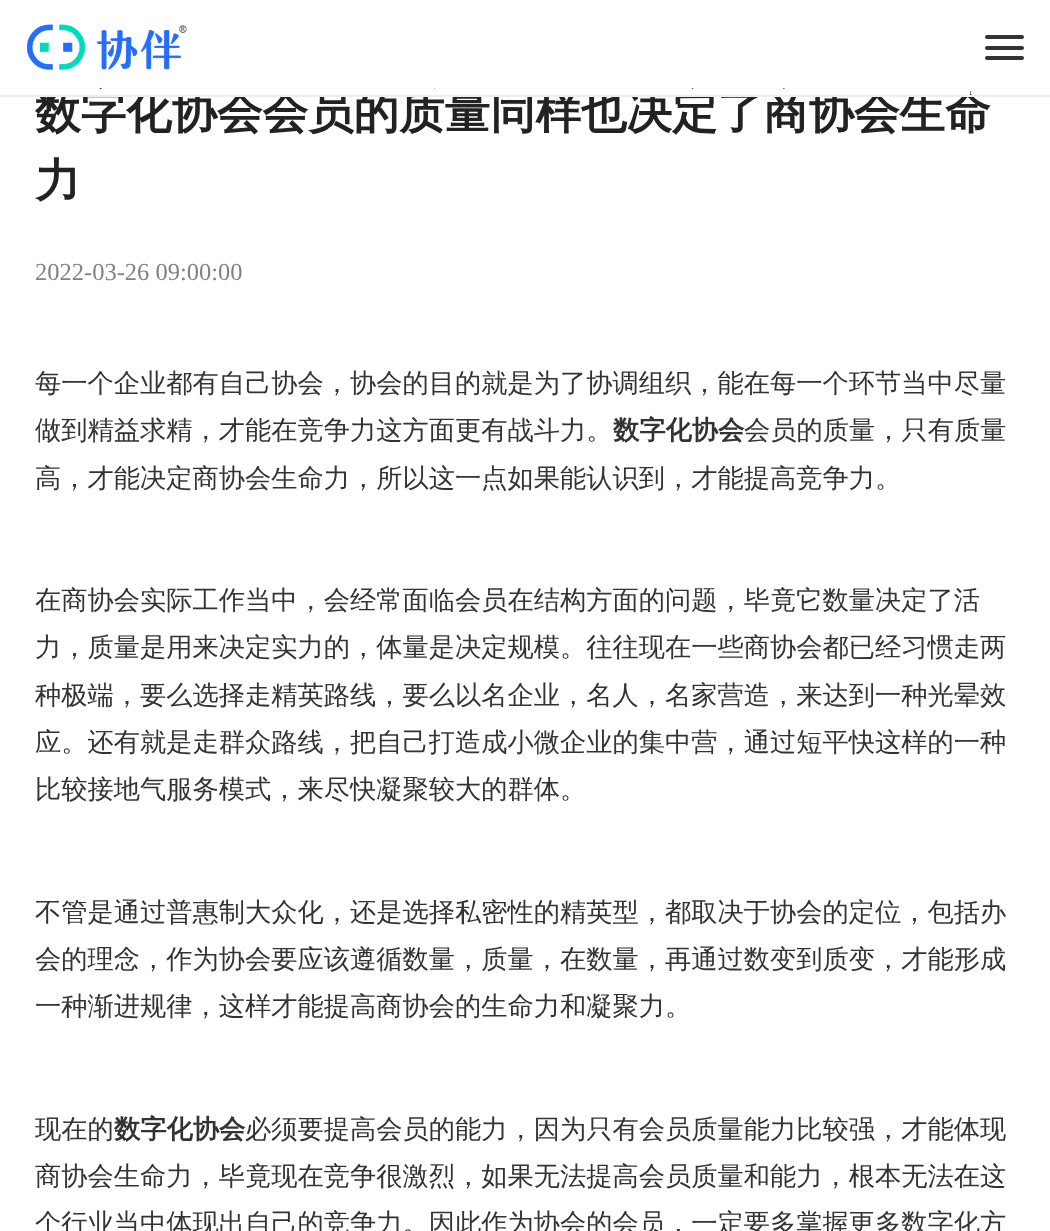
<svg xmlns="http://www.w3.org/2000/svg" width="1050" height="1231">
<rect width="100%" height="100%" fill="#fff"/>
<text x="35" y="128" style="font-family:WenQuanYi Zen Hei;font-size:45.5px;font-weight:bold;fill:#222">数字化协会会员的质量同样也决定了商协会生命</text>
<rect x="37" y="89" width="933" height="6" fill="#fff"/>
<rect y="95" width="1050" height="2" fill="#eee"/>
<image x="27" y="24" width="160" height="46" href="media/1.png"/>
<rect x="985" y="35" width="39" height="4" rx="2" fill="#333"/>
<rect x="985" y="46" width="39" height="4" rx="2" fill="#333"/>
<rect x="985" y="56" width="39" height="4" rx="2" fill="#333"/>
<text x="35" y="196" style="font-family:WenQuanYi Zen Hei;font-size:45.5px;font-weight:bold;fill:#222">力</text>
<text x="35" y="280" style="font-family:Liberation Serif;font-size:24.5px;fill:#828282">2022-03-26 09:00:00</text>
<text x="35" y="392" style="font-family:WenQuanYi Zen Hei;font-size:26.25px;font-weight:500;fill:#333">每一个企业都有自己协会，协会的目的就是为了协调组织，能在每一个环节当中尽量</text>
<text x="35" y="439" style="font-family:WenQuanYi Zen Hei;font-size:26.25px;font-weight:500;fill:#333">做到精益求精，才能在竞争力这方面更有战斗力。</text>
<text x="613" y="439" style="font-family:WenQuanYi Zen Hei;font-size:26.25px;font-weight:bold;fill:#333">数字化协会</text>
<text x="744" y="439" style="font-family:WenQuanYi Zen Hei;font-size:26.25px;font-weight:500;fill:#333">会员的质量，只有质量</text>
<text x="35" y="487" style="font-family:WenQuanYi Zen Hei;font-size:26.25px;font-weight:500;fill:#333">高，才能决定商协会生命力，所以这一点如果能认识到，才能提高竞争力。</text>
<text x="35" y="609" style="font-family:WenQuanYi Zen Hei;font-size:26.25px;font-weight:500;fill:#333">在商协会实际工作当中，会经常面临会员在结构方面的问题，毕竟它数量决定了活</text>
<text x="35" y="656" style="font-family:WenQuanYi Zen Hei;font-size:26.25px;font-weight:500;fill:#333">力，质量是用来决定实力的，体量是决定规模。往往现在一些商协会都已经习惯走两</text>
<text x="35" y="704" style="font-family:WenQuanYi Zen Hei;font-size:26.25px;font-weight:500;fill:#333">种极端，要么选择走精英路线，要么以名企业，名人，名家营造，来达到一种光晕效</text>
<text x="35" y="751" style="font-family:WenQuanYi Zen Hei;font-size:26.25px;font-weight:500;fill:#333">应。还有就是走群众路线，把自己打造成小微企业的集中营，通过短平快这样的一种</text>
<text x="35" y="798" style="font-family:WenQuanYi Zen Hei;font-size:26.25px;font-weight:500;fill:#333">比较接地气服务模式，来尽快凝聚较大的群体。</text>
<text x="35" y="921" style="font-family:WenQuanYi Zen Hei;font-size:26.25px;font-weight:500;fill:#333">不管是通过普惠制大众化，还是选择私密性的精英型，都取决于协会的定位，包括办</text>
<text x="35" y="968" style="font-family:WenQuanYi Zen Hei;font-size:26.25px;font-weight:500;fill:#333">会的理念，作为协会要应该遵循数量，质量，在数量，再通过数变到质变，才能形成</text>
<text x="35" y="1015" style="font-family:WenQuanYi Zen Hei;font-size:26.25px;font-weight:500;fill:#333">一种渐进规律，这样才能提高商协会的生命力和凝聚力。</text>
<text x="35" y="1138" style="font-family:WenQuanYi Zen Hei;font-size:26.25px;font-weight:500;fill:#333">现在的</text>
<text x="114" y="1138" style="font-family:WenQuanYi Zen Hei;font-size:26.25px;font-weight:bold;fill:#333">数字化协会</text>
<text x="245" y="1138" style="font-family:WenQuanYi Zen Hei;font-size:26.25px;font-weight:500;fill:#333">必须要提高会员的能力，因为只有会员质量能力比较强，才能体现</text>
<text x="35" y="1185" style="font-family:WenQuanYi Zen Hei;font-size:26.25px;font-weight:500;fill:#333">商协会生命力，毕竟现在竞争很激烈，如果无法提高会员质量和能力，根本无法在这</text>
<text x="35" y="1232" style="font-family:WenQuanYi Zen Hei;font-size:26.25px;font-weight:500;fill:#333">个行业当中体现出自己的竞争力。因此作为协会的会员，一定要多掌握更多数字化方</text>
</svg>
